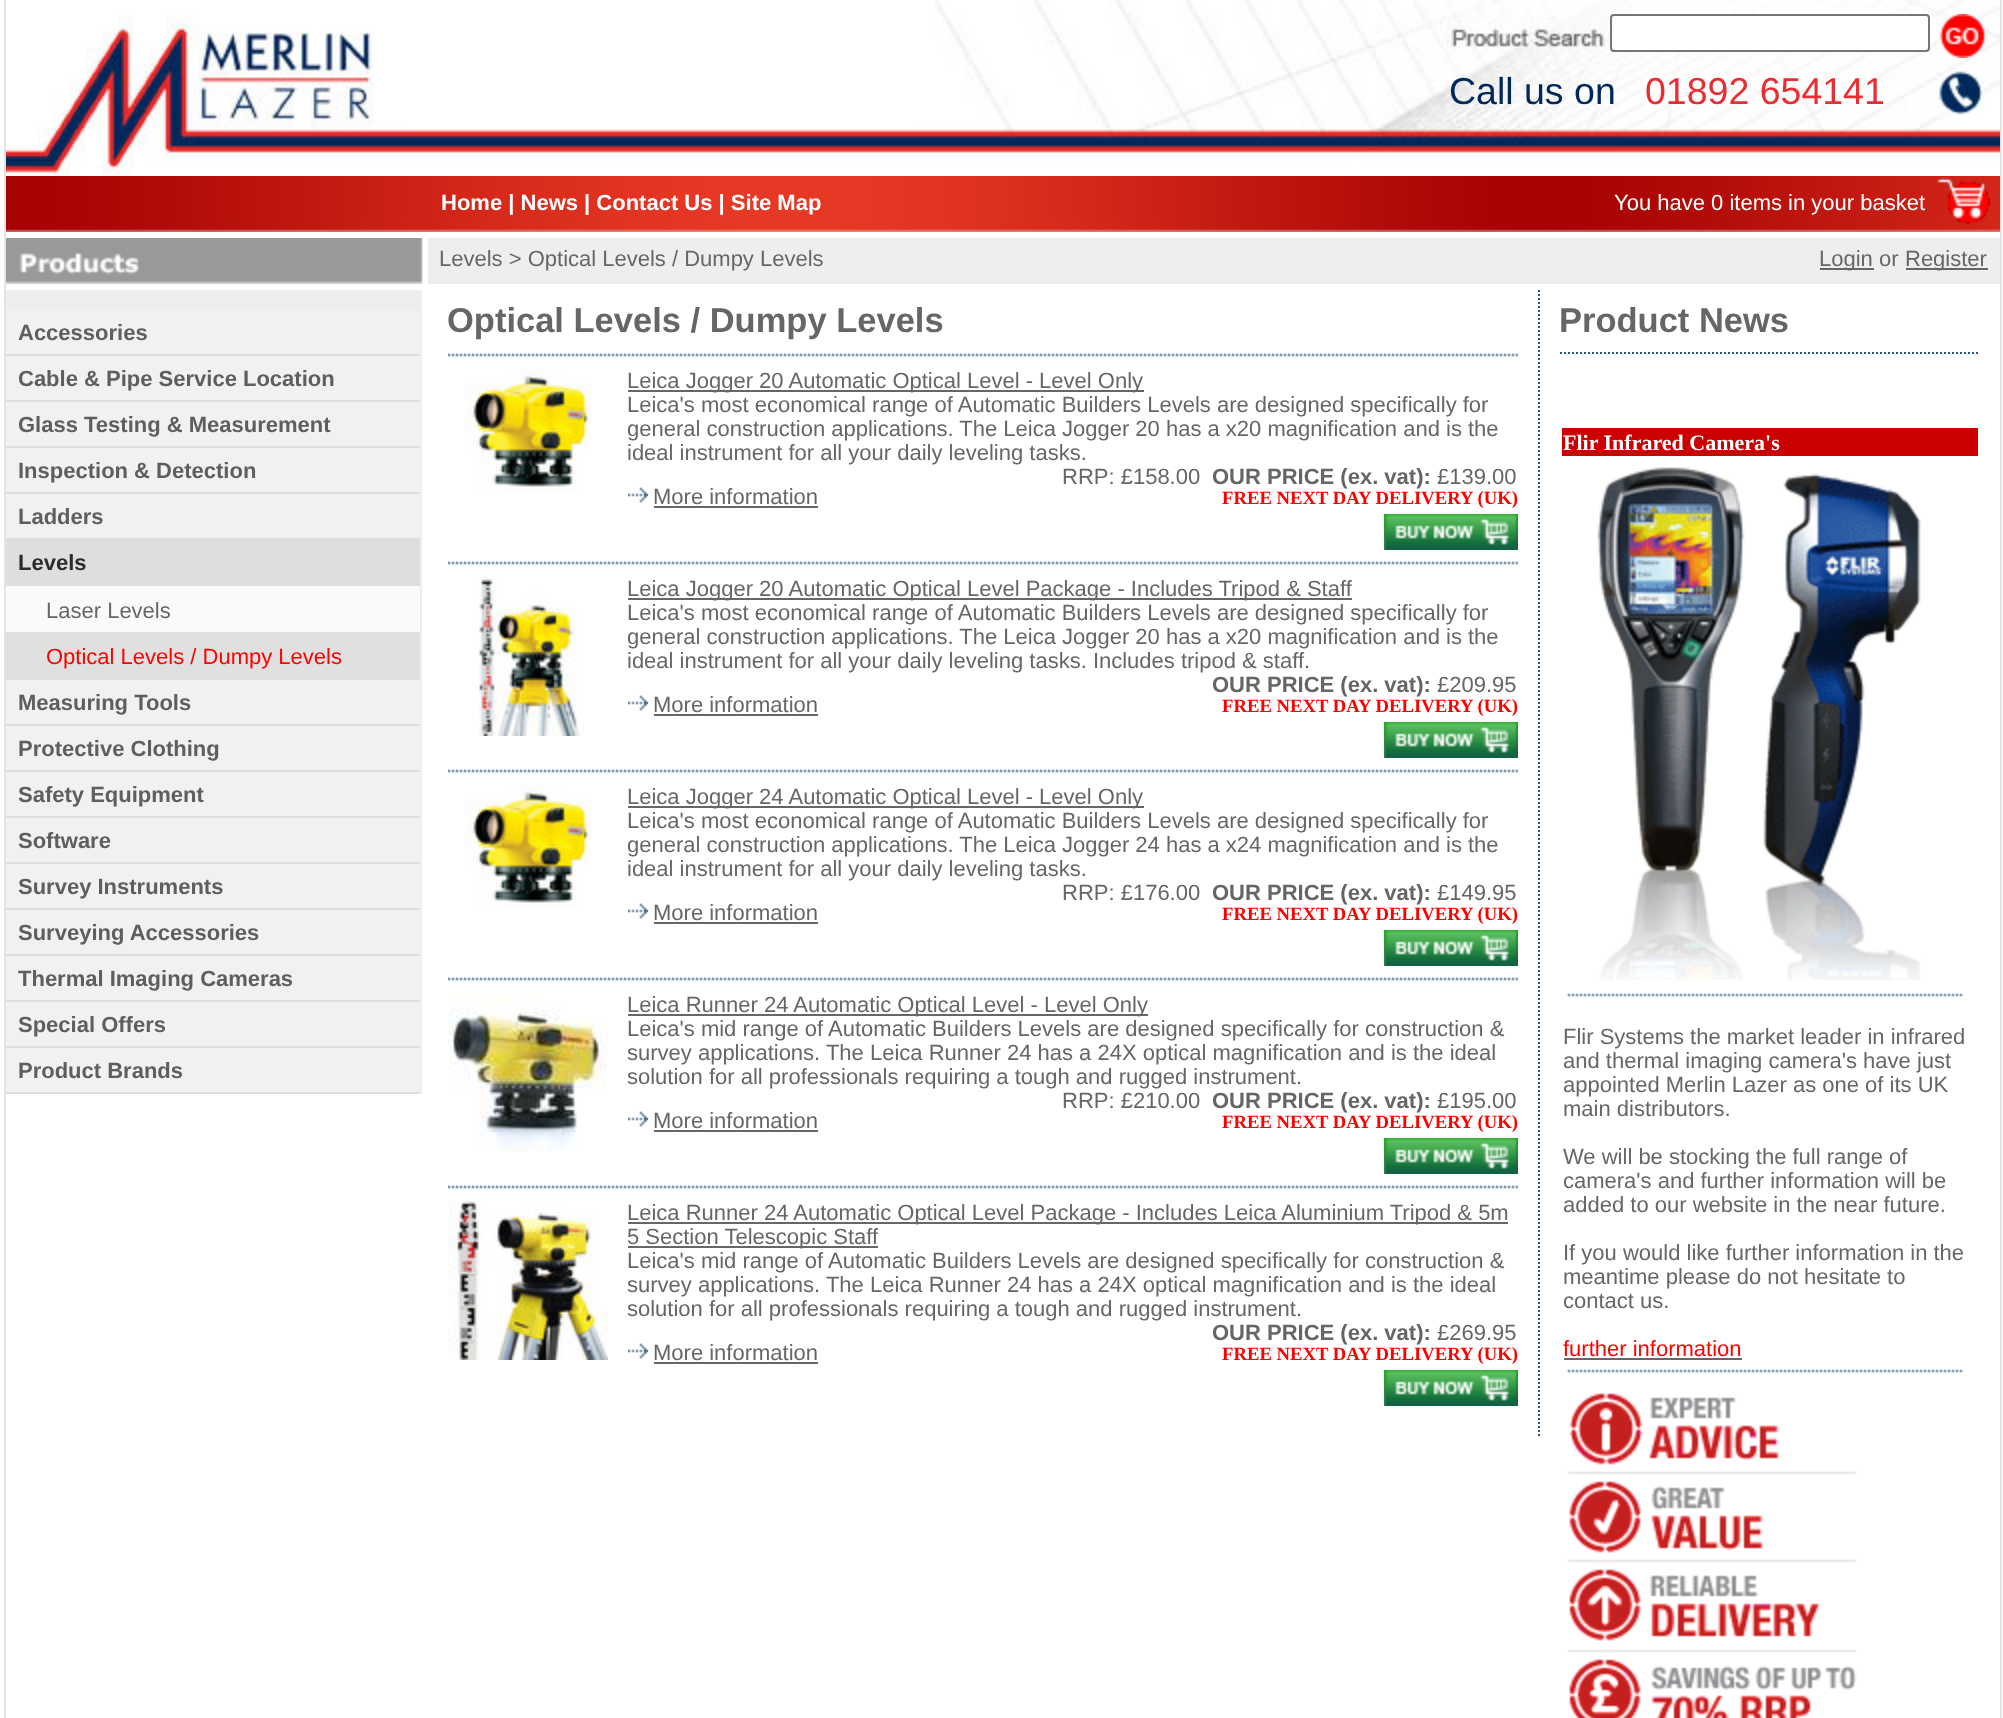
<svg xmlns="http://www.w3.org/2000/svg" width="2003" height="1718">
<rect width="100%" height="100%" fill="#fff"/>
<rect x="4" width="1998" height="1718" fill="#e4e4e4"/>
<image x="6" y="0" width="400" height="176" href="media/1.png"/>
<image x="406" y="0" width="970" height="176" href="media/2.png"/>
<image x="1376" y="0" width="624" height="176" href="media/3.png"/>
<rect x="1611" y="15" width="318" height="36" rx="3" fill="#fff" stroke="#767676" stroke-width="2"/>
<image x="1940" y="14" width="46" height="44" href="media/4.png"/>
<text x="1449" y="104" style="font-family:Liberation Sans;font-size:37.5px;fill:#00295b">Call us on</text>
<text x="1645" y="104" style="font-family:Liberation Sans;font-size:37.5px;fill:#e82e33">01892 654141</text>
<image x="1938" y="70" width="46" height="46" href="media/5.png"/>
<image x="6" y="176" width="1994" height="56" href="media/6.png"/>
<text x="441" y="210" style="font-family:Liberation Sans;font-size:22px;font-weight:bold;fill:#fff">Home | News | Contact Us | Site Map</text>
<text x="1614" y="210" style="font-family:Liberation Sans;font-size:22px;fill:#fff">You have 0 items in your basket</text>
<image x="1937" y="177" width="54" height="48" href="media/7.png"/>
<rect x="428" y="238" width="1572" height="46" fill="#eee"/>
<rect x="6" y="232" width="1994" height="6" fill="#fff"/>
<image x="6" y="238" width="422" height="46" href="media/8.png"/>
<text x="439" y="266" style="font-family:Liberation Sans;font-size:22px;fill:#666">Levels &gt; Optical Levels / Dumpy Levels</text>
<rect x="1820" y="268" width="54" height="2" fill="#666"/>
<text x="1819" y="266" style="font-family:Liberation Sans;font-size:22px;fill:#666">Login or</text>
<rect x="1906" y="268" width="82" height="2" fill="#666"/>
<text x="1905" y="266" style="font-family:Liberation Sans;font-size:22px;fill:#666">Register</text>
<rect x="6" y="284" width="1994" height="1434" fill="#fff"/>
<rect x="6" y="290" width="416" height="804" fill="#eee"/>
<rect x="6" y="310" width="414" height="782" fill="#f1f1f1"/>
<rect x="6" y="354" width="414" height="2" fill="#dedede"/>
<text x="18" y="340" style="font-family:Liberation Sans;font-size:22px;font-weight:bold;fill:#5e5e5e">Accessories</text>
<rect x="6" y="400" width="414" height="2" fill="#dedede"/>
<text x="18" y="386" style="font-family:Liberation Sans;font-size:22px;font-weight:bold;fill:#5e5e5e">Cable &amp; Pipe Service Location</text>
<rect x="6" y="446" width="414" height="2" fill="#dedede"/>
<text x="18" y="432" style="font-family:Liberation Sans;font-size:22px;font-weight:bold;fill:#5e5e5e">Glass Testing &amp; Measurement</text>
<rect x="6" y="492" width="414" height="2" fill="#dedede"/>
<text x="18" y="478" style="font-family:Liberation Sans;font-size:22px;font-weight:bold;fill:#5e5e5e">Inspection &amp; Detection</text>
<rect x="6" y="538" width="414" height="48" fill="#dedede"/>
<text x="18" y="524" style="font-family:Liberation Sans;font-size:22px;font-weight:bold;fill:#5e5e5e">Ladders</text>
<text x="18" y="570" style="font-family:Liberation Sans;font-size:22px;font-weight:bold;fill:#2b2b2b">Levels</text>
<rect x="6" y="586" width="414" height="46" fill="#fafafa"/>
<rect x="6" y="632" width="414" height="2" fill="#dedede"/>
<text x="46" y="618" style="font-family:Liberation Sans;font-size:22px;fill:#666">Laser Levels</text>
<rect x="6" y="634" width="414" height="44" fill="#e0e0e0"/>
<rect x="6" y="678" width="414" height="2" fill="#dedede"/>
<text x="46" y="664" style="font-family:Liberation Sans;font-size:22px;fill:#f00">Optical Levels / Dumpy Levels</text>
<rect x="6" y="724" width="414" height="2" fill="#dedede"/>
<text x="18" y="710" style="font-family:Liberation Sans;font-size:22px;font-weight:bold;fill:#5e5e5e">Measuring Tools</text>
<rect x="6" y="770" width="414" height="2" fill="#dedede"/>
<text x="18" y="756" style="font-family:Liberation Sans;font-size:22px;font-weight:bold;fill:#5e5e5e">Protective Clothing</text>
<rect x="6" y="816" width="414" height="2" fill="#dedede"/>
<text x="18" y="802" style="font-family:Liberation Sans;font-size:22px;font-weight:bold;fill:#5e5e5e">Safety Equipment</text>
<rect x="6" y="862" width="414" height="2" fill="#dedede"/>
<text x="18" y="848" style="font-family:Liberation Sans;font-size:22px;font-weight:bold;fill:#5e5e5e">Software</text>
<rect x="6" y="908" width="414" height="2" fill="#dedede"/>
<text x="18" y="894" style="font-family:Liberation Sans;font-size:22px;font-weight:bold;fill:#5e5e5e">Survey Instruments</text>
<rect x="6" y="954" width="414" height="2" fill="#dedede"/>
<text x="18" y="940" style="font-family:Liberation Sans;font-size:22px;font-weight:bold;fill:#5e5e5e">Surveying Accessories</text>
<rect x="6" y="1000" width="414" height="2" fill="#dedede"/>
<text x="18" y="986" style="font-family:Liberation Sans;font-size:22px;font-weight:bold;fill:#5e5e5e">Thermal Imaging Cameras</text>
<rect x="6" y="1046" width="414" height="2" fill="#dedede"/>
<text x="18" y="1032" style="font-family:Liberation Sans;font-size:22px;font-weight:bold;fill:#5e5e5e">Special Offers</text>
<rect x="6" y="1092" width="414" height="2" fill="#dedede"/>
<text x="18" y="1078" style="font-family:Liberation Sans;font-size:22px;font-weight:bold;fill:#5e5e5e">Product Brands</text>
<path d="M1539 290v1146" fill="none" stroke="#275881" stroke-width="2" stroke-dasharray="2 2"/>
<text x="447" y="332" style="font-family:Liberation Sans;font-size:34.5px;font-weight:bold;fill:#666">Optical Levels / Dumpy Levels</text>
<image x="448" y="353" width="1070" height="4" href="media/9.png"/>
<image x="464" y="368" width="128" height="123" href="media/10.png"/>
<rect x="628" y="390" width="516" height="2" fill="#666"/>
<text x="627" y="388" style="font-family:Liberation Sans;font-size:22px;fill:#666">Leica Jogger 20 Automatic Optical Level - Level Only</text>
<text x="627" y="412" style="font-family:Liberation Sans;font-size:22px;fill:#666">Leica's most economical range of Automatic Builders Levels are designed specifically for</text>
<text x="627" y="436" style="font-family:Liberation Sans;font-size:22px;fill:#666">general construction applications. The Leica Jogger 20 has a x20 magnification and is the</text>
<text x="627" y="460" style="font-family:Liberation Sans;font-size:22px;fill:#666">ideal instrument for all your daily leveling tasks.</text>
<image x="628" y="487" width="20" height="16" href="media/11.png"/>
<text x="653" y="504" style="font-family:Liberation Sans;font-size:22px;fill:#666">More information</text>
<rect x="654" y="506" width="164" height="2" fill="#666"/>
<text x="1062" y="484" style="font-family:Liberation Sans;font-size:22px;fill:#666">RRP: £158.00</text>
<text x="1212" y="484" style="font-family:Liberation Sans;font-size:22px;font-weight:bold;fill:#666">OUR PRICE (ex. vat):</text>
<text x="1437" y="484" style="font-family:Liberation Sans;font-size:22px;fill:#666">£139.00</text>
<text x="1222" y="504" style="font-family:Liberation Serif;font-size:18.7px;font-weight:bold;fill:#f00">FREE NEXT DAY DELIVERY (UK)</text>
<image x="1384" y="514" width="134" height="36" href="media/12.png"/>
<image x="448" y="561" width="1070" height="4" href="media/9.png"/>
<image x="479" y="576" width="105" height="160" href="media/13.png"/>
<rect x="628" y="598" width="724" height="2" fill="#666"/>
<text x="627" y="596" style="font-family:Liberation Sans;font-size:22px;fill:#666">Leica Jogger 20 Automatic Optical Level Package - Includes Tripod &amp; Staff</text>
<text x="627" y="620" style="font-family:Liberation Sans;font-size:22px;fill:#666">Leica's most economical range of Automatic Builders Levels are designed specifically for</text>
<text x="627" y="644" style="font-family:Liberation Sans;font-size:22px;fill:#666">general construction applications. The Leica Jogger 20 has a x20 magnification and is the</text>
<text x="627" y="668" style="font-family:Liberation Sans;font-size:22px;fill:#666">ideal instrument for all your daily leveling tasks. Includes tripod &amp; staff.</text>
<image x="628" y="695" width="20" height="16" href="media/11.png"/>
<text x="653" y="712" style="font-family:Liberation Sans;font-size:22px;fill:#666">More information</text>
<rect x="654" y="714" width="164" height="2" fill="#666"/>
<text x="1212" y="692" style="font-family:Liberation Sans;font-size:22px;font-weight:bold;fill:#666">OUR PRICE (ex. vat):</text>
<text x="1437" y="692" style="font-family:Liberation Sans;font-size:22px;fill:#666">£209.95</text>
<text x="1222" y="712" style="font-family:Liberation Serif;font-size:18.7px;font-weight:bold;fill:#f00">FREE NEXT DAY DELIVERY (UK)</text>
<image x="1384" y="722" width="134" height="36" href="media/12.png"/>
<image x="448" y="769" width="1070" height="4" href="media/9.png"/>
<image x="464" y="784" width="128" height="123" href="media/10.png"/>
<rect x="628" y="806" width="516" height="2" fill="#666"/>
<text x="627" y="804" style="font-family:Liberation Sans;font-size:22px;fill:#666">Leica Jogger 24 Automatic Optical Level - Level Only</text>
<text x="627" y="828" style="font-family:Liberation Sans;font-size:22px;fill:#666">Leica's most economical range of Automatic Builders Levels are designed specifically for</text>
<text x="627" y="852" style="font-family:Liberation Sans;font-size:22px;fill:#666">general construction applications. The Leica Jogger 24 has a x24 magnification and is the</text>
<text x="627" y="876" style="font-family:Liberation Sans;font-size:22px;fill:#666">ideal instrument for all your daily leveling tasks.</text>
<image x="628" y="903" width="20" height="16" href="media/11.png"/>
<text x="653" y="920" style="font-family:Liberation Sans;font-size:22px;fill:#666">More information</text>
<rect x="654" y="922" width="164" height="2" fill="#666"/>
<text x="1062" y="900" style="font-family:Liberation Sans;font-size:22px;fill:#666">RRP: £176.00</text>
<text x="1212" y="900" style="font-family:Liberation Sans;font-size:22px;font-weight:bold;fill:#666">OUR PRICE (ex. vat):</text>
<text x="1437" y="900" style="font-family:Liberation Sans;font-size:22px;fill:#666">£149.95</text>
<text x="1222" y="920" style="font-family:Liberation Serif;font-size:18.7px;font-weight:bold;fill:#f00">FREE NEXT DAY DELIVERY (UK)</text>
<image x="1384" y="930" width="134" height="36" href="media/12.png"/>
<image x="448" y="977" width="1070" height="4" href="media/9.png"/>
<image x="448" y="992" width="160" height="160" href="media/14.png"/>
<rect x="628" y="1014" width="520" height="2" fill="#666"/>
<text x="627" y="1012" style="font-family:Liberation Sans;font-size:22px;fill:#666">Leica Runner 24 Automatic Optical Level - Level Only</text>
<text x="627" y="1036" style="font-family:Liberation Sans;font-size:22px;fill:#666">Leica's mid range of Automatic Builders Levels are designed specifically for construction &amp;</text>
<text x="627" y="1060" style="font-family:Liberation Sans;font-size:22px;fill:#666">survey applications. The Leica Runner 24 has a 24X optical magnification and is the ideal</text>
<text x="627" y="1084" style="font-family:Liberation Sans;font-size:22px;fill:#666">solution for all professionals requiring a tough and rugged instrument.</text>
<image x="628" y="1111" width="20" height="16" href="media/11.png"/>
<text x="653" y="1128" style="font-family:Liberation Sans;font-size:22px;fill:#666">More information</text>
<rect x="654" y="1130" width="164" height="2" fill="#666"/>
<text x="1062" y="1108" style="font-family:Liberation Sans;font-size:22px;fill:#666">RRP: £210.00</text>
<text x="1212" y="1108" style="font-family:Liberation Sans;font-size:22px;font-weight:bold;fill:#666">OUR PRICE (ex. vat):</text>
<text x="1437" y="1108" style="font-family:Liberation Sans;font-size:22px;fill:#666">£195.00</text>
<text x="1222" y="1128" style="font-family:Liberation Serif;font-size:18.7px;font-weight:bold;fill:#f00">FREE NEXT DAY DELIVERY (UK)</text>
<image x="1384" y="1138" width="134" height="36" href="media/12.png"/>
<image x="448" y="1185" width="1070" height="4" href="media/9.png"/>
<image x="448" y="1200" width="160" height="160" href="media/15.png"/>
<rect x="628" y="1222" width="880" height="2" fill="#666"/>
<text x="627" y="1220" style="font-family:Liberation Sans;font-size:22px;fill:#666">Leica Runner 24 Automatic Optical Level Package - Includes Leica Aluminium Tripod &amp; 5m</text>
<rect x="628" y="1246" width="250" height="2" fill="#666"/>
<text x="627" y="1244" style="font-family:Liberation Sans;font-size:22px;fill:#666">5 Section Telescopic Staff</text>
<text x="627" y="1268" style="font-family:Liberation Sans;font-size:22px;fill:#666">Leica's mid range of Automatic Builders Levels are designed specifically for construction &amp;</text>
<text x="627" y="1292" style="font-family:Liberation Sans;font-size:22px;fill:#666">survey applications. The Leica Runner 24 has a 24X optical magnification and is the ideal</text>
<text x="627" y="1316" style="font-family:Liberation Sans;font-size:22px;fill:#666">solution for all professionals requiring a tough and rugged instrument.</text>
<image x="628" y="1343" width="20" height="16" href="media/11.png"/>
<text x="653" y="1360" style="font-family:Liberation Sans;font-size:22px;fill:#666">More information</text>
<rect x="654" y="1362" width="164" height="2" fill="#666"/>
<text x="1212" y="1340" style="font-family:Liberation Sans;font-size:22px;font-weight:bold;fill:#666">OUR PRICE (ex. vat):</text>
<text x="1437" y="1340" style="font-family:Liberation Sans;font-size:22px;fill:#666">£269.95</text>
<text x="1222" y="1360" style="font-family:Liberation Serif;font-size:18.7px;font-weight:bold;fill:#f00">FREE NEXT DAY DELIVERY (UK)</text>
<image x="1384" y="1370" width="134" height="36" href="media/12.png"/>
<path d="M1560 353h420" fill="none" stroke="#275881" stroke-width="2" stroke-dasharray="2 2"/>
<text x="1559" y="332" style="font-family:Liberation Sans;font-size:34.5px;font-weight:bold;fill:#666">Product News</text>
<rect x="1562" y="428" width="416" height="28" fill="#c00"/>
<text x="1563" y="450" style="font-family:Liberation Serif;font-size:22px;font-weight:bold;fill:#fff">Flir Infrared Camera's</text>
<image x="1597" y="467" width="324" height="513" href="media/16.png"/>
<image x="1567" y="993" width="396" height="4" href="media/17.png"/>
<text x="1563" y="1044" style="font-family:Liberation Sans;font-size:22px;fill:#666">Flir Systems the market leader in infrared</text>
<text x="1563" y="1068" style="font-family:Liberation Sans;font-size:22px;fill:#666">and thermal imaging camera's have just</text>
<text x="1563" y="1092" style="font-family:Liberation Sans;font-size:22px;fill:#666">appointed Merlin Lazer as one of its UK</text>
<text x="1563" y="1116" style="font-family:Liberation Sans;font-size:22px;fill:#666">main distributors.</text>
<text x="1563" y="1164" style="font-family:Liberation Sans;font-size:22px;fill:#666">We will be stocking the full range of</text>
<text x="1563" y="1188" style="font-family:Liberation Sans;font-size:22px;fill:#666">camera's and further information will be</text>
<text x="1563" y="1212" style="font-family:Liberation Sans;font-size:22px;fill:#666">added to our website in the near future.</text>
<text x="1563" y="1260" style="font-family:Liberation Sans;font-size:22px;fill:#666">If you would like further information in the</text>
<text x="1563" y="1284" style="font-family:Liberation Sans;font-size:22px;fill:#666">meantime please do not hesitate to</text>
<text x="1563" y="1308" style="font-family:Liberation Sans;font-size:22px;fill:#666">contact us.</text>
<text x="1563" y="1356" style="font-family:Liberation Sans;font-size:22px;fill:#f00">further information</text>
<rect x="1564" y="1358" width="178" height="2" fill="#666"/>
<image x="1567" y="1369" width="396" height="4" href="media/17.png"/>
<image x="1567" y="1393" width="290" height="325" href="media/18.png"/>
</svg>
